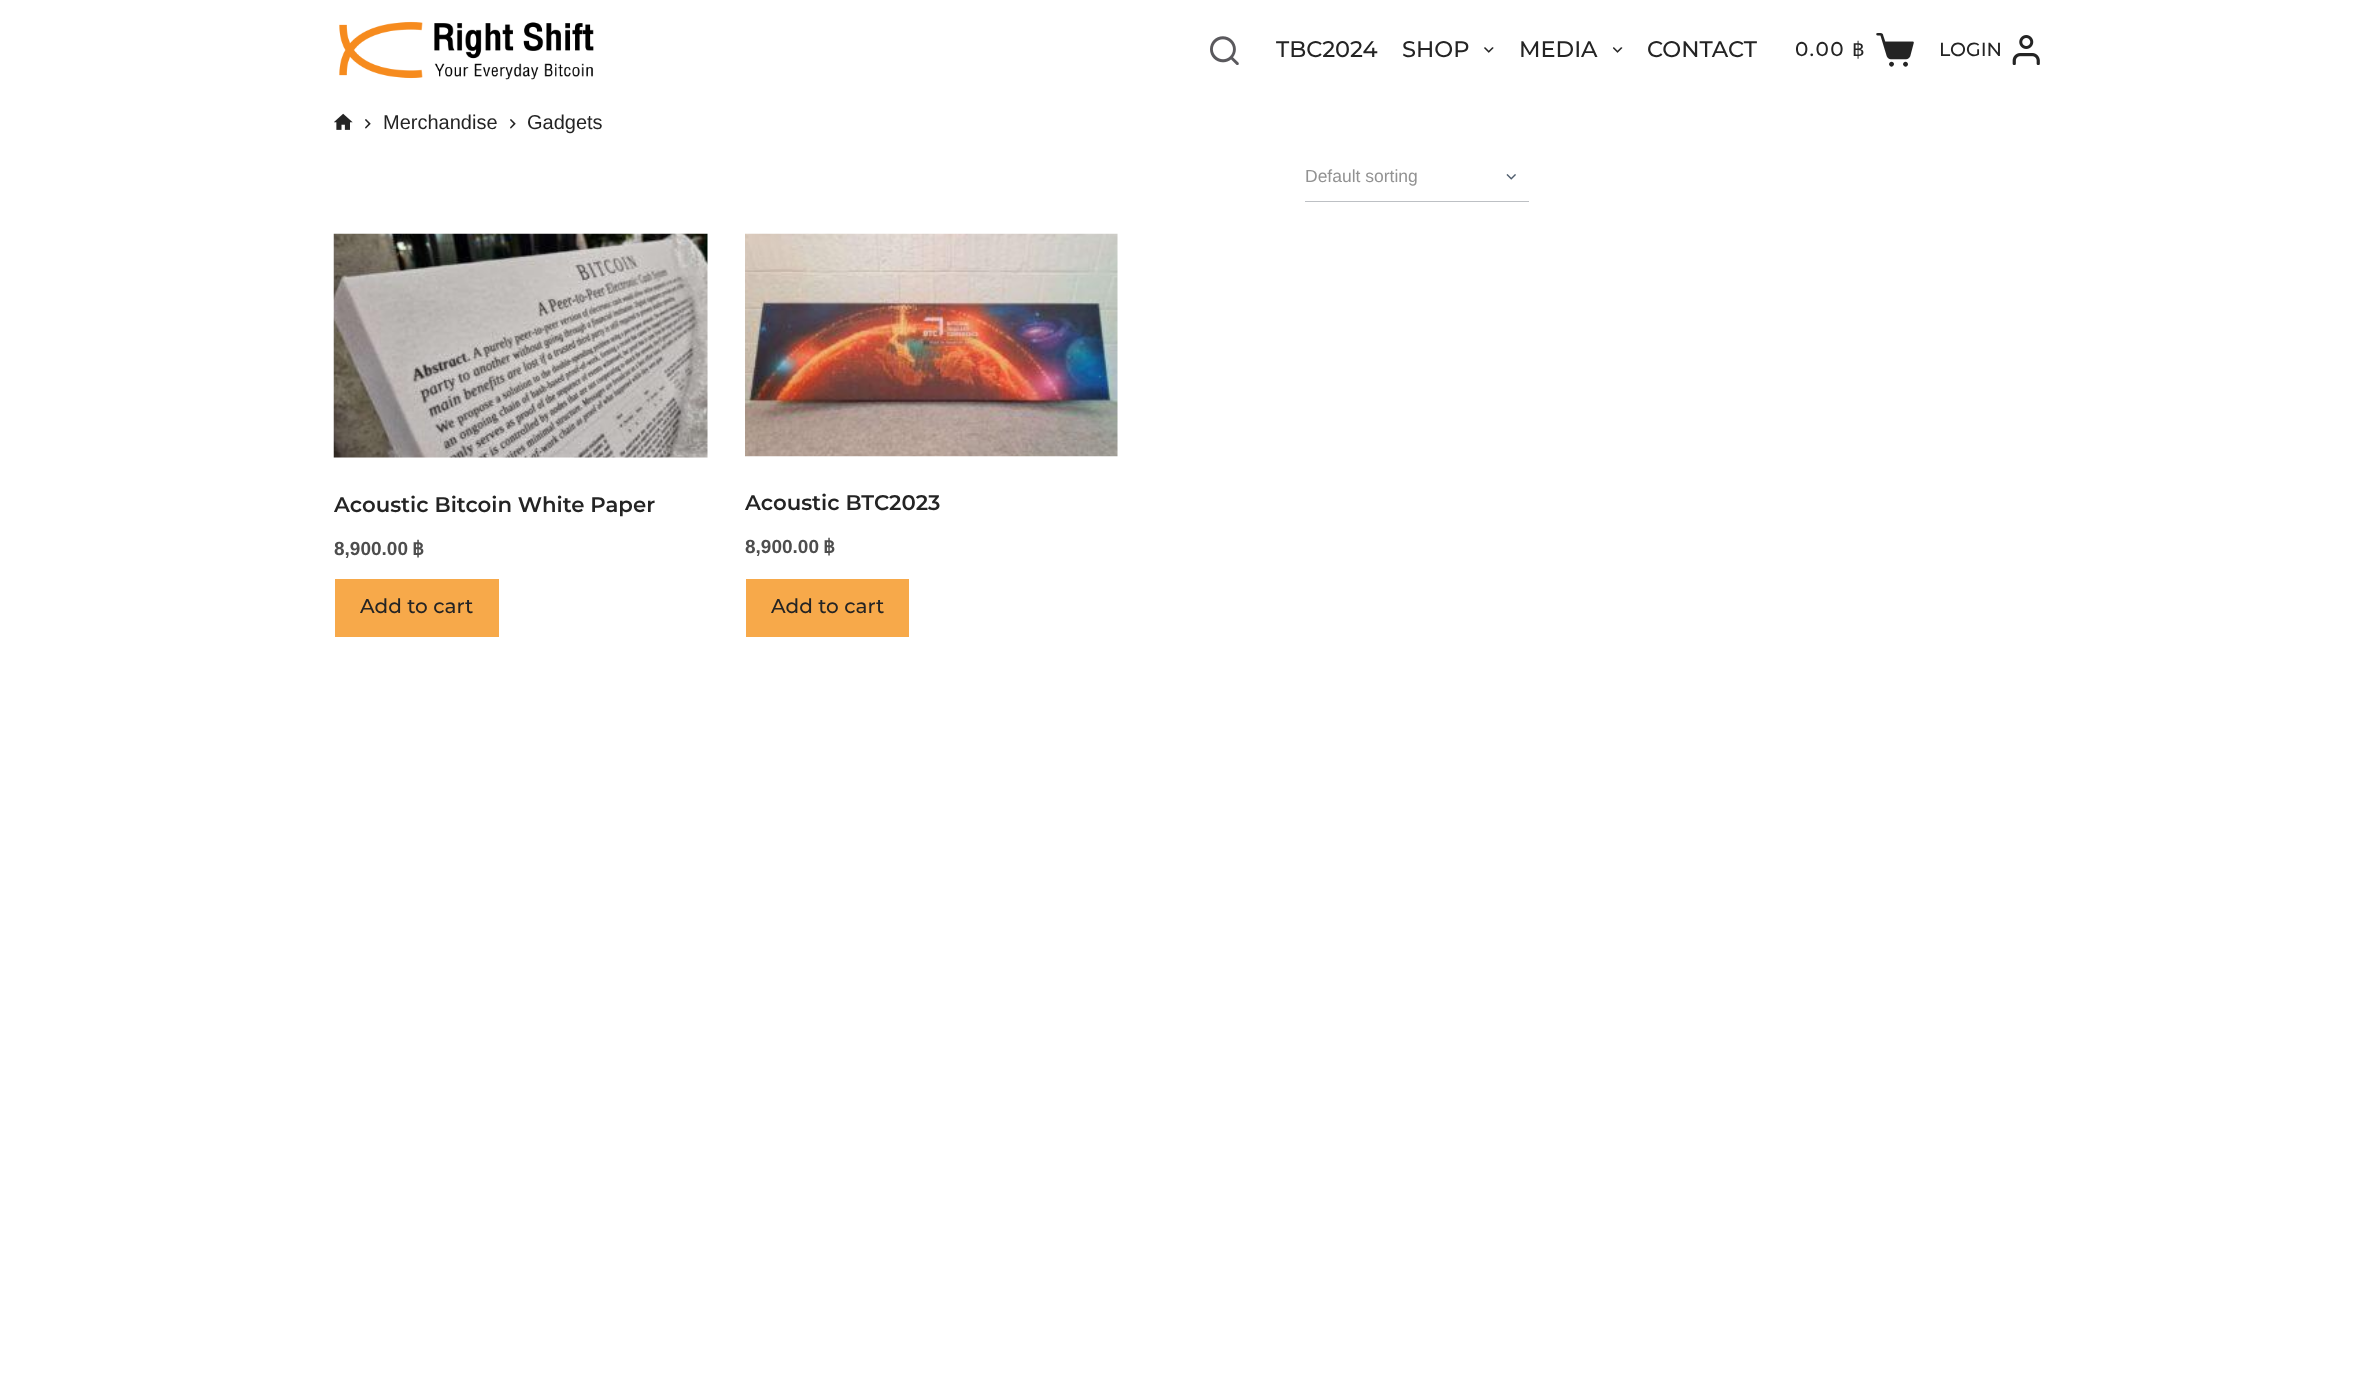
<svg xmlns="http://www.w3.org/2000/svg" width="2374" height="1384">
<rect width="100%" height="100%" fill="#fff"/>
<image x="339" y="21" width="255" height="59" href="media/1.png"/>
<image x="1210" y="36" width="29" height="29" href="media/2.png"/>
<text x="1276" y="57" style="font-family:Montserrat;font-size:22.5px;font-weight:500;fill:#242424">TBC2024</text>
<text x="1402" y="57" style="font-family:Montserrat;font-size:22.5px;font-weight:500;fill:#242424">SHOP</text>
<image x="1484" y="47" width="10" height="6" href="media/3.png"/>
<text x="1519" y="57" style="font-family:Montserrat;font-size:22.5px;font-weight:500;fill:#242424">MEDIA</text>
<image x="1613" y="47" width="10" height="6" href="media/4.png"/>
<text x="1647" y="57" style="font-family:Montserrat;font-size:22.5px;font-weight:500;fill:#242424">CONTACT</text>
<text x="1795" y="56" style="font-family:Montserrat;font-size:20px;font-weight:500;letter-spacing:1.5px;fill:#242424">0.00</text>
<text x="1852" y="56" style="font-family:DejaVu Sans;font-size:20px;letter-spacing:1.5px;fill:#242424">฿</text>
<image x="1876" y="33" width="38" height="34" href="media/5.png"/>
<text x="1939" y="56" style="font-family:Montserrat;font-size:19px;font-weight:500;fill:#242424">LOGIN</text>
<image x="2012" y="35" width="28" height="30" href="media/6.png"/>
<image x="334" y="113" width="19" height="17" href="media/7.png"/>
<image x="365" y="119" width="6" height="10" href="media/8.png"/>
<text x="383" y="129" style="font-family:Liberation Sans;font-size:20px;fill:#242424">Merchandise</text>
<image x="510" y="119" width="6" height="10" href="media/8.png"/>
<text x="527" y="129" style="font-family:Liberation Sans;font-size:20px;fill:#242424">Gadgets</text>
<image x="1506" y="174" width="10" height="6" href="media/9.png"/>
<rect x="1305" y="201" width="224" height="1" fill="#bdc0c4"/>
<text x="1305" y="182" style="font-family:Liberation Sans;font-size:17.5px;fill:#929292">Default sorting</text>
<image x="333" y="233" width="375" height="225" href="media/10.png"/>
<text x="334" y="512" style="font-family:Montserrat;font-size:21.25px;font-weight:600;fill:#242424">Acoustic Bitcoin White Paper</text>
<text x="334" y="555" style="font-family:Liberation Sans;font-size:19px;font-weight:bold;fill:#4d4d4d">8,900.00</text>
<text x="412" y="555" style="font-family:DejaVu Sans;font-size:19px;font-weight:bold;fill:#4d4d4d">฿</text>
<rect x="335" y="579" width="164" height="58" fill="#f7a94a"/>
<text x="360" y="613" style="font-family:Montserrat;font-size:20px;font-weight:500;fill:#242424">Add to cart</text>
<image x="745" y="233" width="373" height="224" href="media/11.png"/>
<text x="745" y="510" style="font-family:Montserrat;font-size:21.25px;font-weight:600;fill:#242424">Acoustic BTC2023</text>
<text x="745" y="553" style="font-family:Liberation Sans;font-size:19px;font-weight:bold;fill:#4d4d4d">8,900.00</text>
<text x="823" y="553" style="font-family:DejaVu Sans;font-size:19px;font-weight:bold;fill:#4d4d4d">฿</text>
<rect x="746" y="579" width="163" height="58" fill="#f7a94a"/>
<text x="771" y="613" style="font-family:Montserrat;font-size:20px;font-weight:500;fill:#242424">Add to cart</text>
</svg>
